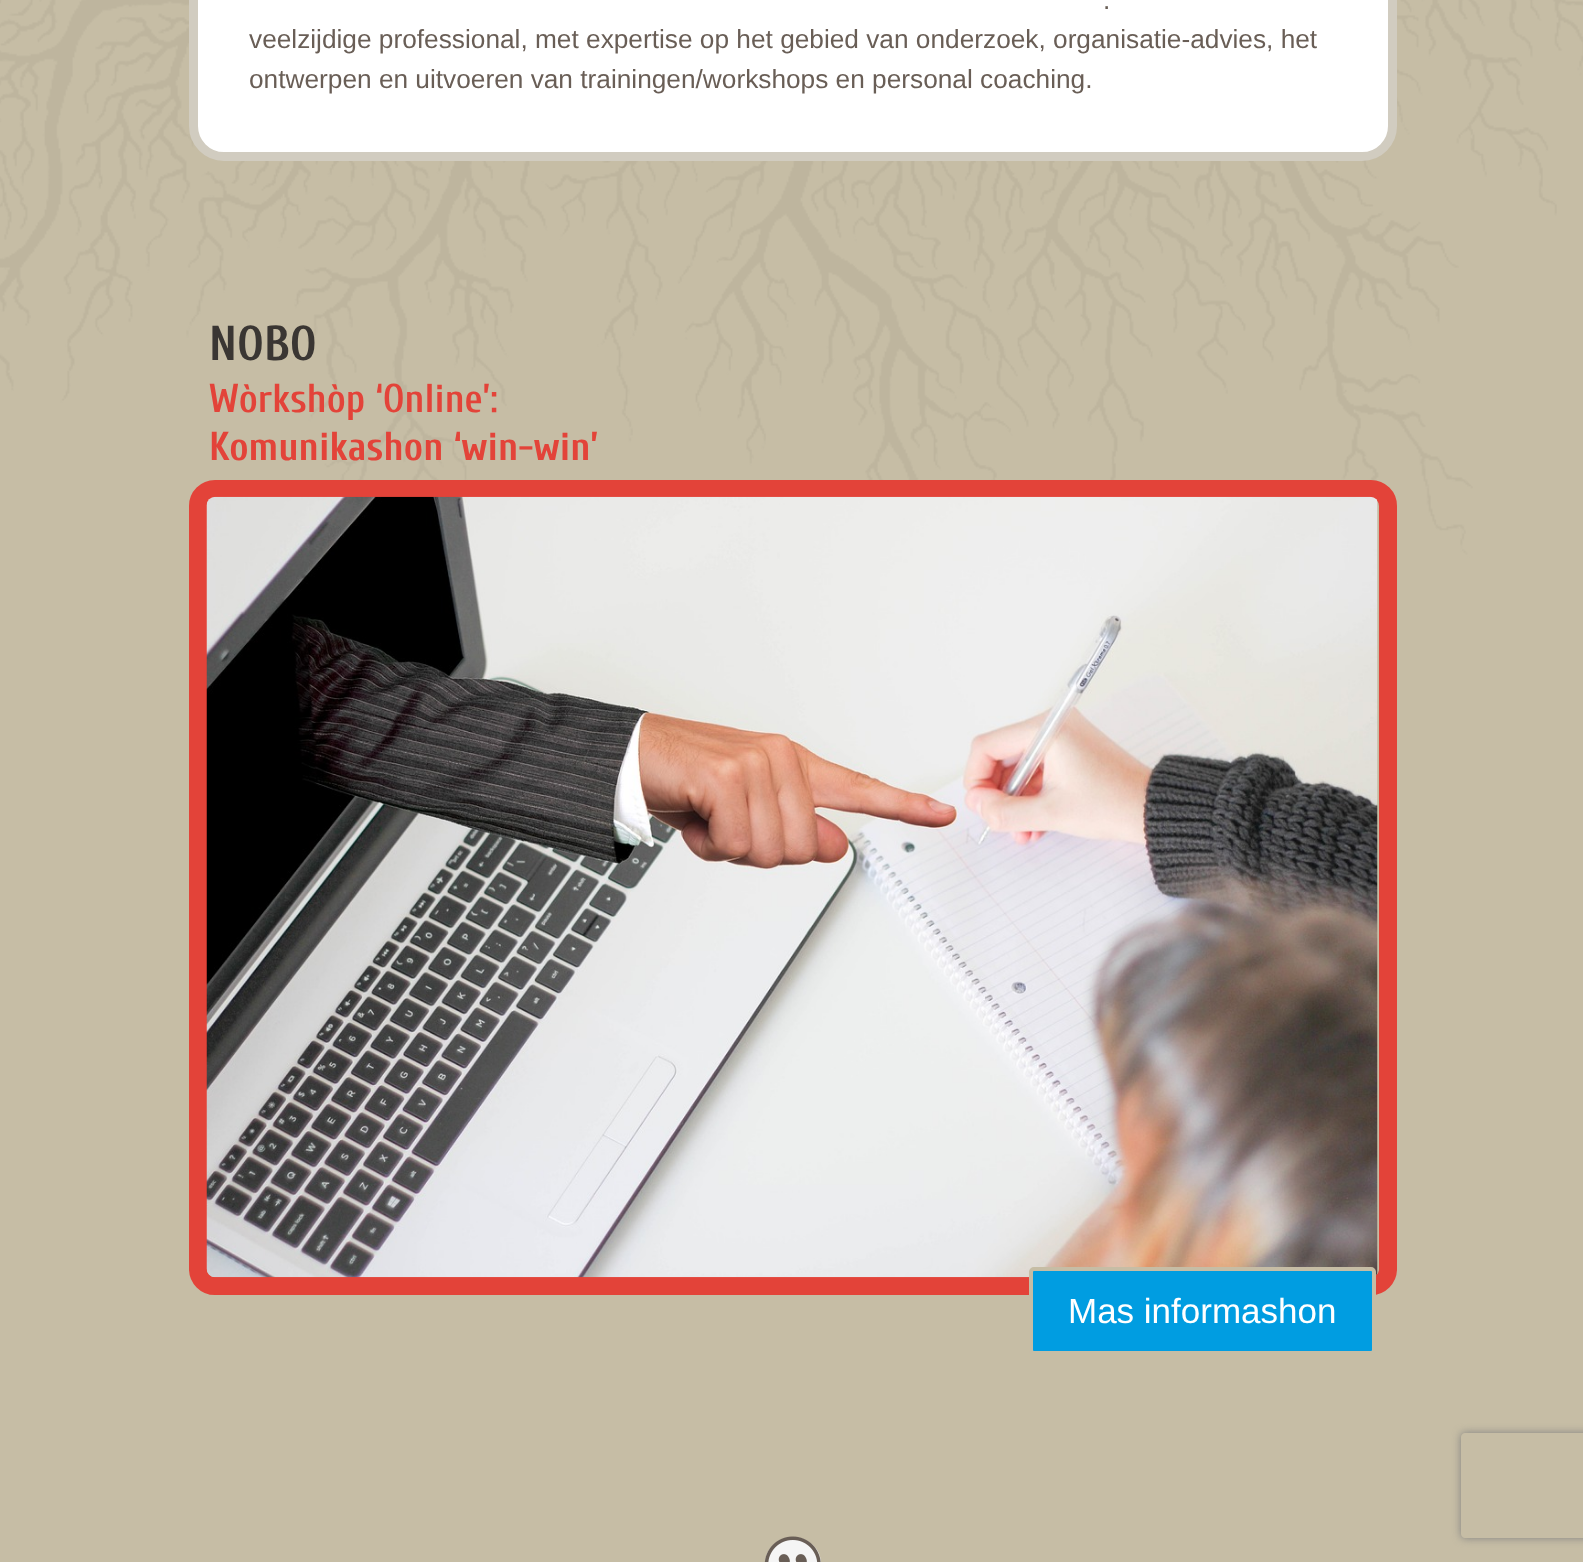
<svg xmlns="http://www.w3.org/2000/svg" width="1583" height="1562">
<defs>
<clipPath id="clip1"><path d="M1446 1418h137v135h-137zm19 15h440c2 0 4 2 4 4v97c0 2-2 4-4 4h-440c-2 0-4-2-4-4v-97c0-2 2-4 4-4z" clip-rule="evenodd"/></clipPath>
</defs>
<rect width="100%" height="100%" fill="#c6bda5"/>
<image x="0" y="0" width="1583" height="558" href="media/1.png"/>
<rect x="193.5" y="-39.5" width="1199" height="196" rx="30.5" fill="#fff" stroke="#d1ccc0" stroke-width="9"/>
<text x="1103" y="9" style="font-family:Liberation Sans;font-size:26.25px;fill:#695e56">.</text>
<text x="249" y="48" style="font-family:Liberation Sans;font-size:26.25px;fill:#695e56">veelzijdige professional, met expertise op het gebied van onderzoek, organisatie-advies, het</text>
<text x="249" y="88" style="font-family:Liberation Sans;font-size:26.25px;fill:#695e56">ontwerpen en uitvoeren van trainingen/workshops en personal coaching.</text>
<text x="209" y="360" style="font-family:Cuprum;font-size:49px;font-weight:bold;fill:#3a3633">NOBO</text>
<text x="209" y="412" style="font-family:Cuprum;font-size:40.25px;font-weight:600;fill:#e34339">Wòrkshòp ‘Online’:</text>
<text x="209" y="460" style="font-family:Cuprum;font-size:40.25px;font-weight:bold;fill:#e34339">Komunikashon ‘win-win’</text>
<rect x="198" y="489" width="1190" height="797" rx="17" fill="none" stroke="#e34339" stroke-width="18"/>
<image x="206" y="496" width="1172" height="782" href="media/2.png"/>
<rect x="1031" y="1269" width="343" height="84" rx="3" fill="#009de1" stroke="#c6bda5" stroke-width="4"/>
<text x="1068" y="1323" style="font-family:Liberation Sans;font-size:35px;fill:#fff">Mas informashon</text>
<rect x="765" y="1537" width="56" height="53" rx="28" fill="#f5f5f5"/>
<image x="764" y="1536" width="57" height="26" href="media/3.png"/>
<g clip-path="url(#clip1)">
<rect x="1461" y="1433" width="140" height="105" rx="4" fill="#808080" filter="blur(4.5px)"/>
</g>
</svg>
